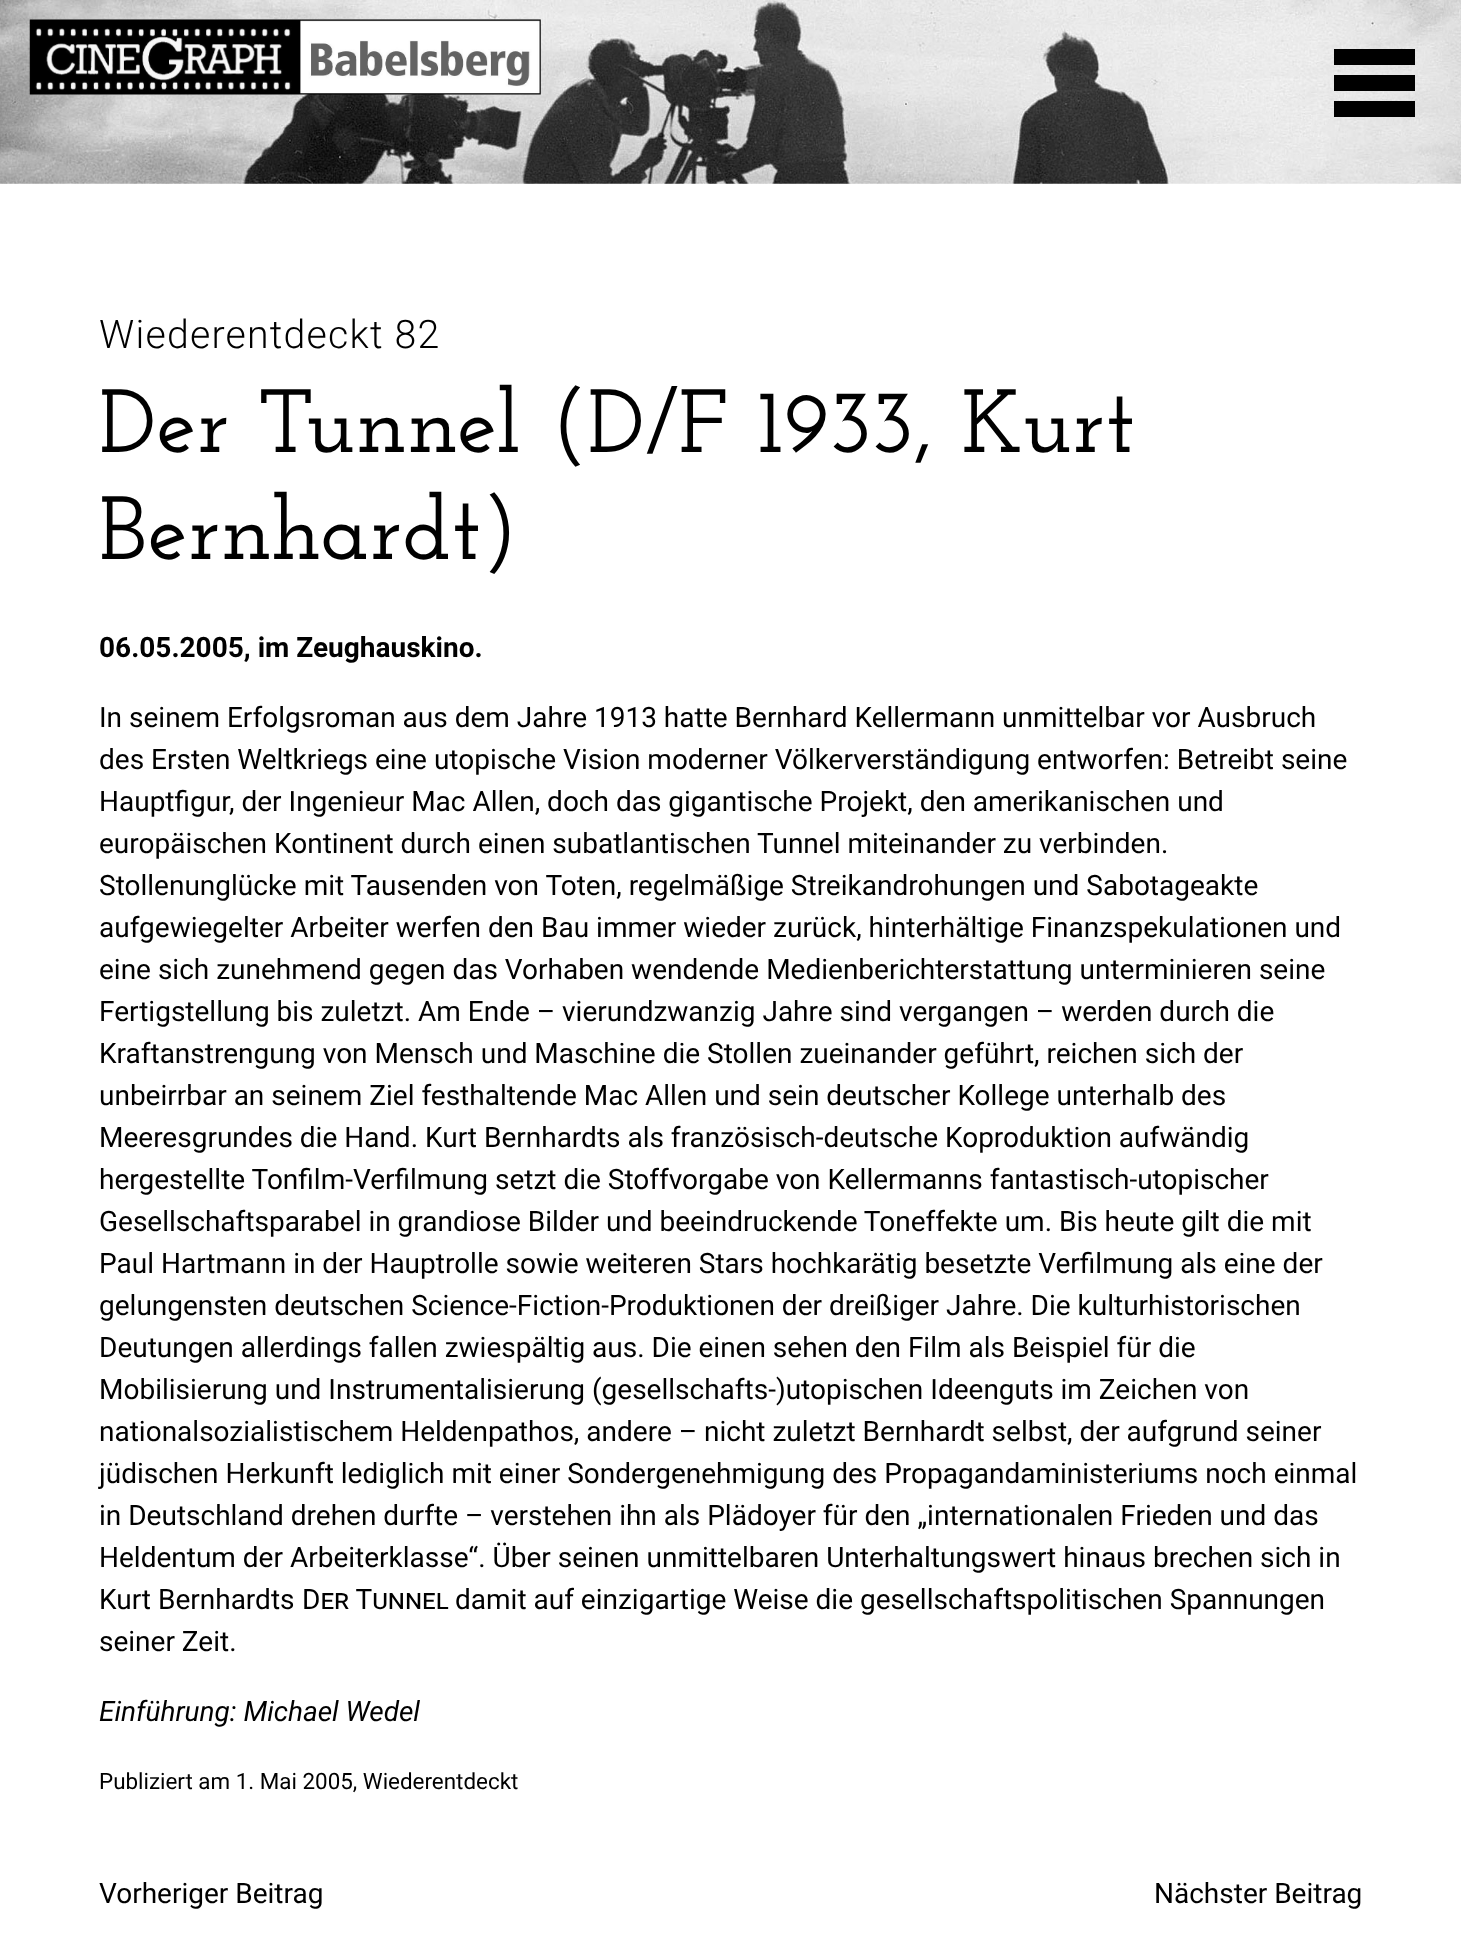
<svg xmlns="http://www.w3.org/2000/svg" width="1461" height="1954">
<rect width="100%" height="100%" fill="#fff"/>
<image x="0" y="0" width="1461" height="184" href="media/1.png"/>
<image x="29" y="19" width="512" height="76" href="media/2.png"/>
<rect x="1334" y="49" width="81" height="16" fill="#000"/>
<rect x="1334" y="75" width="81" height="16" fill="#000"/>
<rect x="1334" y="101" width="81" height="16" fill="#000"/>
<text x="99" y="348" style="font-family:Roboto;font-size:39.25px;font-weight:300;letter-spacing:1.2px;fill:#000">Wiederentdeckt 82</text>
<text x="99" y="452" style="font-family:Josefin Slab;font-size:89.6px;font-weight:600;letter-spacing:0.9px;fill:#000">Der Tunnel (D/F 1933, Kurt</text>
<text x="99" y="559" style="font-family:Josefin Slab;font-size:89.6px;font-weight:600;letter-spacing:0.9px;fill:#000">Bernhardt)</text>
<text x="99" y="657" style="font-family:Roboto;font-size:28px;font-weight:bold;fill:#000">06.05.2005, im Zeughauskino.</text>
<text x="99" y="727" style="font-family:Roboto;font-size:28px;fill:#000">In seinem Erfolgsroman aus dem Jahre 1913 hatte Bernhard Kellermann unmittelbar vor Ausbruch</text>
<text x="99" y="769" style="font-family:Roboto;font-size:28px;fill:#000">des Ersten Weltkriegs eine utopische Vision moderner Völkerverständigung entworfen: Betreibt seine</text>
<text x="99" y="811" style="font-family:Roboto;font-size:28px;fill:#000">Hauptfigur, der Ingenieur Mac Allen, doch das gigantische Projekt, den amerikanischen und</text>
<text x="99" y="853" style="font-family:Roboto;font-size:28px;fill:#000">europäischen Kontinent durch einen subatlantischen Tunnel miteinander zu verbinden.</text>
<text x="99" y="895" style="font-family:Roboto;font-size:28px;fill:#000">Stollenunglücke mit Tausenden von Toten, regelmäßige Streikandrohungen und Sabotageakte</text>
<text x="99" y="937" style="font-family:Roboto;font-size:28px;fill:#000">aufgewiegelter Arbeiter werfen den Bau immer wieder zurück, hinterhältige Finanzspekulationen und</text>
<text x="99" y="979" style="font-family:Roboto;font-size:28px;fill:#000">eine sich zunehmend gegen das Vorhaben wendende Medienberichterstattung unterminieren seine</text>
<text x="99" y="1021" style="font-family:Roboto;font-size:28px;fill:#000">Fertigstellung bis zuletzt. Am Ende – vierundzwanzig Jahre sind vergangen – werden durch die</text>
<text x="99" y="1063" style="font-family:Roboto;font-size:28px;fill:#000">Kraftanstrengung von Mensch und Maschine die Stollen zueinander geführt, reichen sich der</text>
<text x="99" y="1105" style="font-family:Roboto;font-size:28px;fill:#000">unbeirrbar an seinem Ziel festhaltende Mac Allen und sein deutscher Kollege unterhalb des</text>
<text x="99" y="1147" style="font-family:Roboto;font-size:28px;fill:#000">Meeresgrundes die Hand. Kurt Bernhardts als französisch-deutsche Koproduktion aufwändig</text>
<text x="99" y="1189" style="font-family:Roboto;font-size:28px;fill:#000">hergestellte Tonfilm-Verfilmung setzt die Stoffvorgabe von Kellermanns fantastisch-utopischer</text>
<text x="99" y="1231" style="font-family:Roboto;font-size:28px;fill:#000">Gesellschaftsparabel in grandiose Bilder und beeindruckende Toneffekte um. Bis heute gilt die mit</text>
<text x="99" y="1273" style="font-family:Roboto;font-size:28px;fill:#000">Paul Hartmann in der Hauptrolle sowie weiteren Stars hochkarätig besetzte Verfilmung als eine der</text>
<text x="99" y="1315" style="font-family:Roboto;font-size:28px;fill:#000">gelungensten deutschen Science-Fiction-Produktionen der dreißiger Jahre. Die kulturhistorischen</text>
<text x="99" y="1357" style="font-family:Roboto;font-size:28px;fill:#000">Deutungen allerdings fallen zwiespältig aus. Die einen sehen den Film als Beispiel für die</text>
<text x="99" y="1399" style="font-family:Roboto;font-size:28px;fill:#000">Mobilisierung und Instrumentalisierung (gesellschafts-)utopischen Ideenguts im Zeichen von</text>
<text x="99" y="1441" style="font-family:Roboto;font-size:28px;fill:#000">nationalsozialistischem Heldenpathos, andere – nicht zuletzt Bernhardt selbst, der aufgrund seiner</text>
<text x="99" y="1483" style="font-family:Roboto;font-size:28px;fill:#000">jüdischen Herkunft lediglich mit einer Sondergenehmigung des Propagandaministeriums noch einmal</text>
<text x="99" y="1525" style="font-family:Roboto;font-size:28px;fill:#000">in Deutschland drehen durfte – verstehen ihn als Plädoyer für den „internationalen Frieden und das</text>
<text x="99" y="1567" style="font-family:Roboto;font-size:28px;fill:#000">Heldentum der Arbeiterklasse“. Über seinen unmittelbaren Unterhaltungswert hinaus brechen sich in</text>
<text x="99" y="1609" style="font-family:Roboto;font-size:28px;fill:#000">Kurt Bernhardts</text>
<text x="302" y="1609" style="font-family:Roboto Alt;font-size:28px;fill:#000">Der Tunnel</text>
<text x="455" y="1609" style="font-family:Roboto;font-size:28px;fill:#000">damit auf einzigartige Weise die gesellschaftspolitischen Spannungen</text>
<text x="99" y="1651" style="font-family:Roboto;font-size:28px;fill:#000">seiner Zeit.</text>
<text x="99" y="1721" style="font-family:Roboto;font-size:28px;font-style:italic;fill:#000">Einführung: Michael Wedel</text>
<text x="99" y="1789" style="font-family:Roboto;font-size:22.4px;fill:#000">Publiziert am 1. Mai 2005, Wiederentdeckt</text>
<text x="99" y="1903" style="font-family:Roboto;font-size:28px;fill:#000">Vorheriger Beitrag</text>
<text x="1154" y="1903" style="font-family:Roboto;font-size:28px;fill:#000">Nächster Beitrag</text>
</svg>
